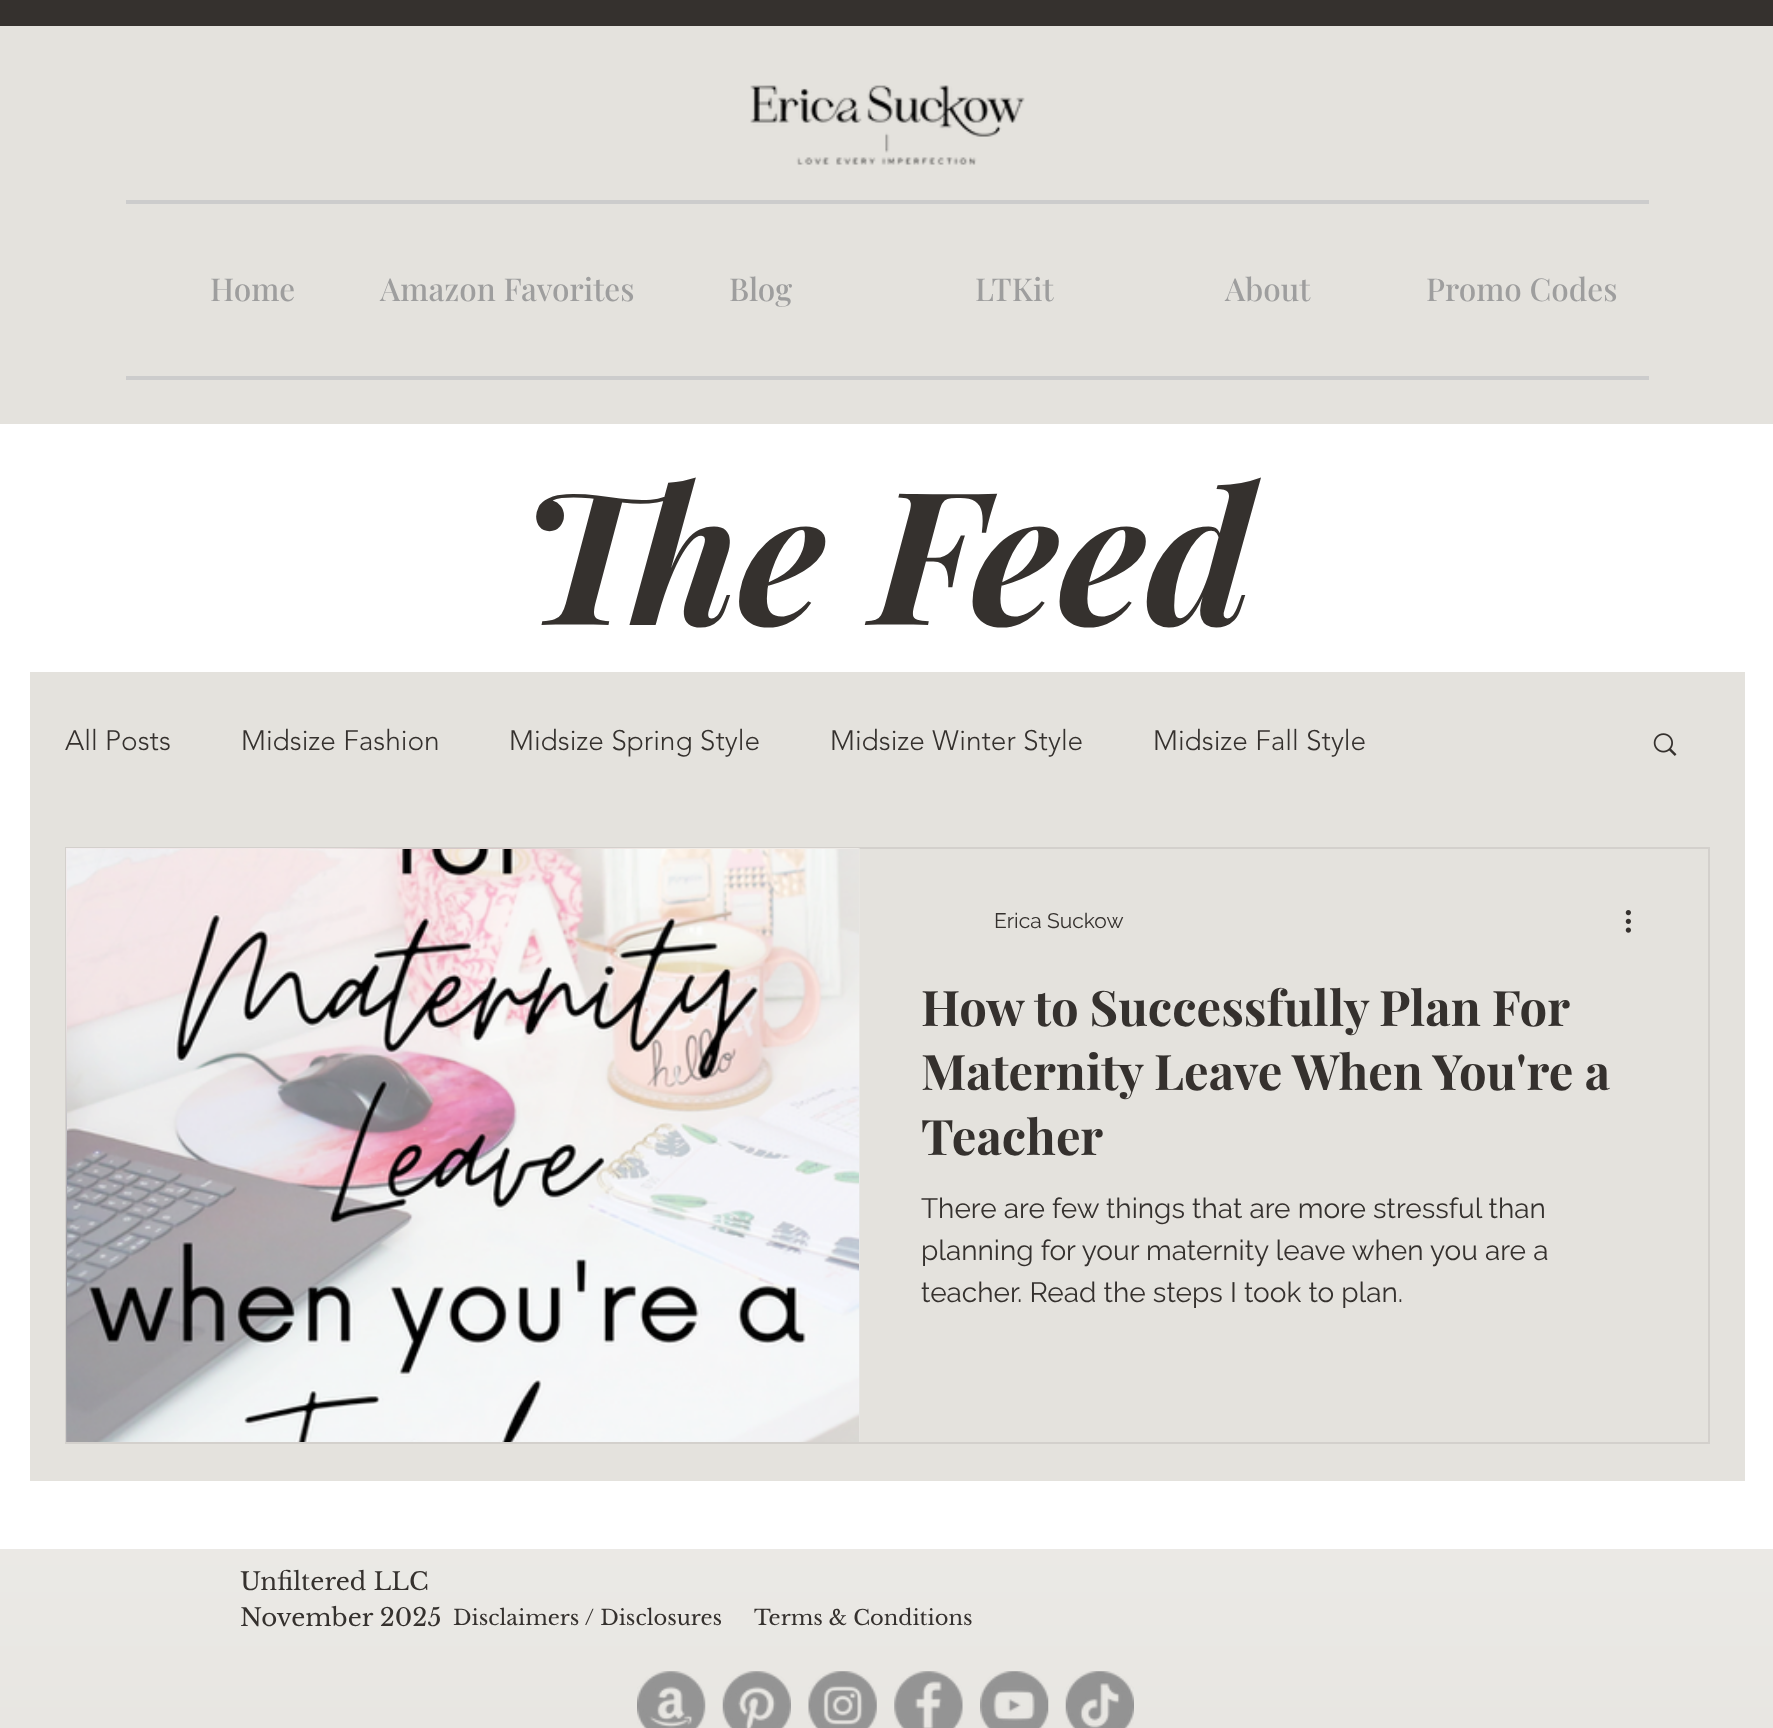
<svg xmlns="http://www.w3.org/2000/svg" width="1773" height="1728">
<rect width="100%" height="100%" fill="#fff"/>
<rect y="26" width="1773" height="398" fill="#e4e2dd"/>
<rect width="1773" height="26" fill="#35312e"/>
<image x="750" y="85" width="275" height="80" href="media/1.png"/>
<rect x="126" y="200" width="1523" height="4" fill="#ccc"/>
<rect x="126" y="376" width="1523" height="4" fill="#ccc"/>
<text x="210" y="301" style="font-family:Playfair Display;font-size:31.5px;font-weight:500;fill:#9e9e9e">Home</text>
<text x="380" y="301" style="font-family:Playfair Display;font-size:31.5px;font-weight:500;fill:#9e9e9e">Amazon Favorites</text>
<text x="729" y="301" style="font-family:Playfair Display;font-size:31.5px;font-weight:500;fill:#9e9e9e">Blog</text>
<text x="975" y="301" style="font-family:Playfair Display;font-size:31.5px;font-weight:500;fill:#9e9e9e">LTKit</text>
<text x="1225" y="301" style="font-family:Playfair Display;font-size:31.5px;font-weight:500;fill:#9e9e9e">About</text>
<text x="1426" y="301" style="font-family:Playfair Display;font-size:31.5px;font-weight:500;fill:#9e9e9e">Promo Codes</text>
<text x="520" y="625" style="font-family:Playfair Display;font-size:185.5px;font-weight:bold;font-style:italic;fill:#35312e">The Feed</text>
<rect x="30" y="672" width="1715" height="809" fill="#e4e2dd"/>
<text x="65" y="750" style="font-family:'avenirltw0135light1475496';font-size:28px;font-weight:300;fill:#35312e">All Posts</text>
<text x="241" y="750" style="font-family:'avenirltw0135light1475496';font-size:28px;font-weight:300;fill:#35312e">Midsize Fashion</text>
<text x="509" y="750" style="font-family:'avenirltw0135light1475496';font-size:28px;font-weight:300;fill:#35312e">Midsize Spring Style</text>
<text x="830" y="750" style="font-family:'avenirltw0135light1475496';font-size:28px;font-weight:300;fill:#35312e">Midsize Winter Style</text>
<text x="1153" y="750" style="font-family:'avenirltw0135light1475496';font-size:28px;font-weight:300;fill:#35312e">Midsize Fall Style</text>
<image x="1653" y="733" width="24" height="23" href="media/2.png"/>
<rect x="66" y="848" width="1643" height="595" fill="none" stroke="#d3d0cc" stroke-width="2"/>
<image x="66" y="848" width="794" height="594" href="media/3.png"/>
<image x="67" y="849" width="792" height="593" href="media/4.png"/>
<text x="994" y="928" style="font-family:Raleway;font-size:21px;fill:#35312e">Erica Suckow</text>
<image x="1625" y="910" width="6" height="23" href="media/5.png"/>
<text x="921" y="1026" word-spacing="-0.5" style="font-family:Playfair Display;font-size:49px;font-weight:bold;fill:#35312e">How to Successfully Plan For</text>
<text x="921" y="1090" style="font-family:Playfair Display;font-size:49px;font-weight:bold;fill:#35312e">Maternity Leave When You're a</text>
<text x="921" y="1155" style="font-family:Playfair Display;font-size:49px;font-weight:bold;fill:#35312e">Teacher</text>
<text x="921" y="1218" style="font-family:Raleway;font-size:28px;fill:#35312e">There are few things that are more stressful than</text>
<text x="921" y="1260" style="font-family:Raleway;font-size:28px;fill:#35312e">planning for your maternity leave when you are a</text>
<text x="921" y="1302" style="font-family:Raleway;font-size:28px;fill:#35312e">teacher. Read the steps I took to plan.</text>
<rect y="1549" width="1773" height="179" fill="#e4e2dd"/>
<image x="0" y="1549" width="1773" height="179" href="media/6.png"/>
<text x="240" y="1590" style="font-family:Libre Baskerville;font-size:24.5px;fill:#35312e">Unfiltered LLC</text>
<text x="240" y="1626" style="font-family:Libre Baskerville;font-size:24.5px;fill:#35312e">November 2025</text>
<text x="453" y="1625" style="font-family:Libre Baskerville;font-size:21px;fill:#35312e">Disclaimers / Disclosures</text>
<text x="754" y="1625" style="font-family:Libre Baskerville;font-size:21px;fill:#35312e">Terms &amp; Conditions</text>
<image x="637" y="1671" width="69" height="57" href="media/7.png"/>
<image x="722" y="1671" width="69" height="57" href="media/8.png"/>
<image x="808" y="1671" width="69" height="57" href="media/9.png"/>
<image x="894" y="1671" width="69" height="57" href="media/10.png"/>
<image x="980" y="1671" width="69" height="57" href="media/11.png"/>
<image x="1065" y="1671" width="69" height="57" href="media/12.png"/>
</svg>
